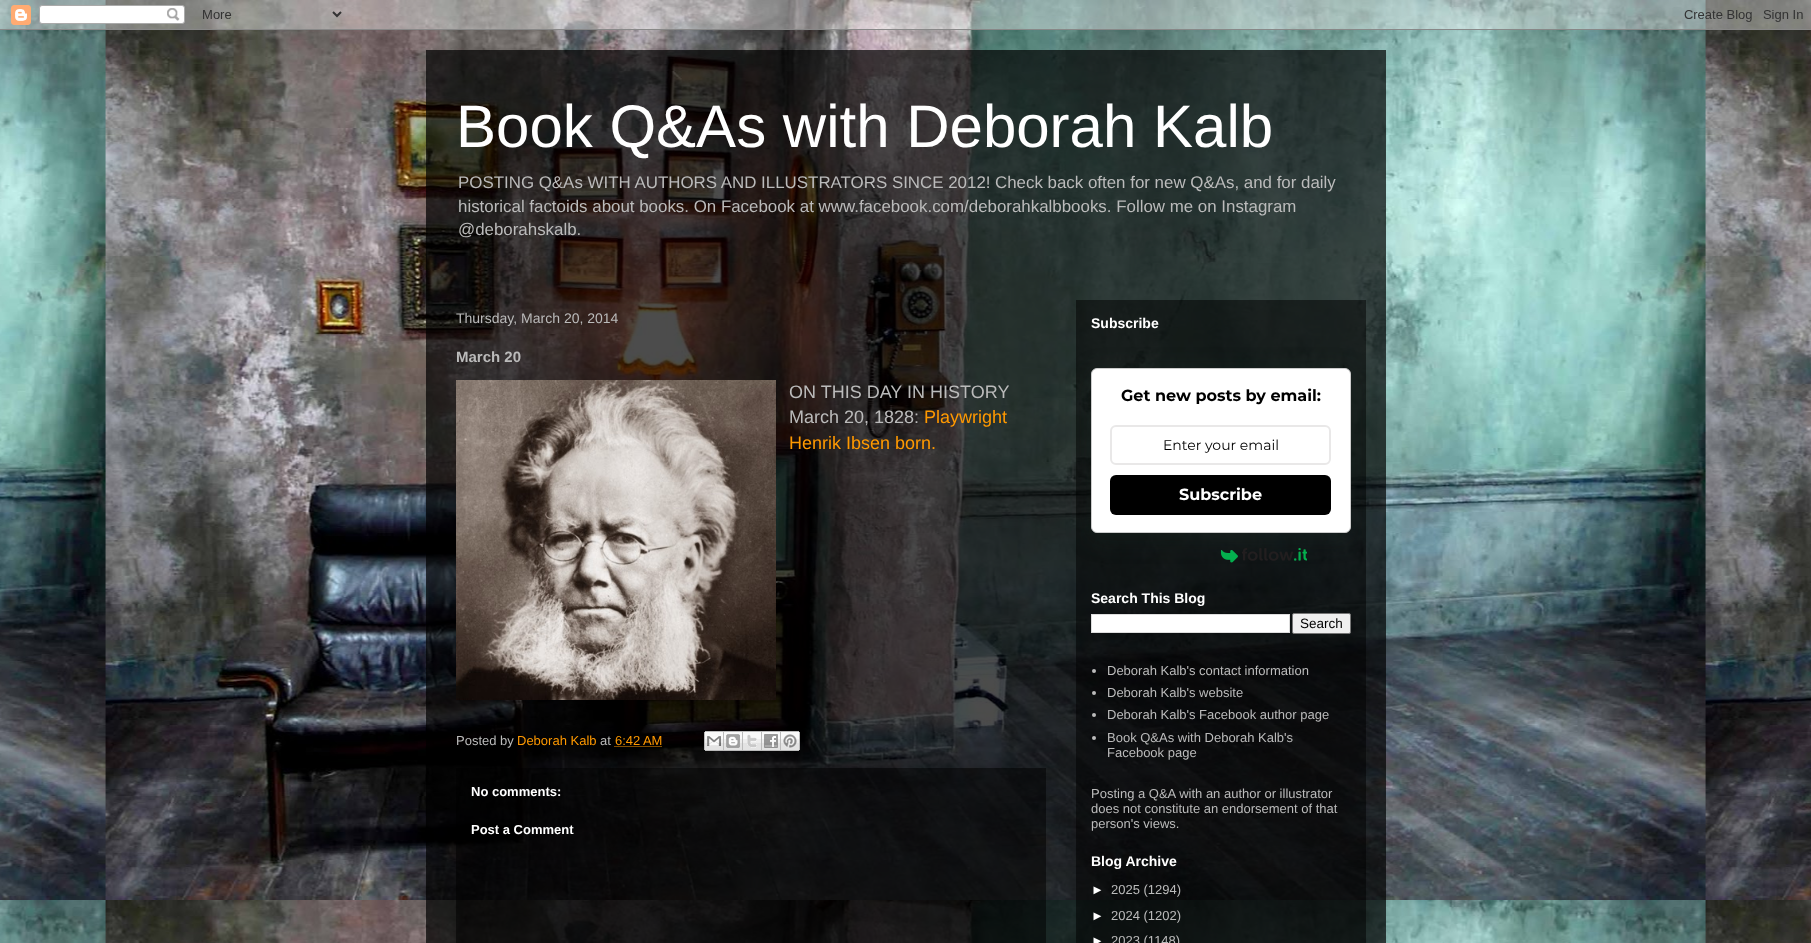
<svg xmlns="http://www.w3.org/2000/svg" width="1811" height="943">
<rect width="100%" height="100%" fill="#fff"/>
<image x="0" y="0" width="1811" height="943" href="media/1.png"/>
<image x="0" y="0" width="1811" height="30" href="media/2.png"/>
<rect x="426" y="50" width="960" height="893" fill="#000000b3"/>
<text x="456" y="147" style="font-family:Liberation Sans;font-size:60px;fill:#fff">Book Q&amp;As with Deborah Kalb</text>
<text x="458" y="188" style="font-family:Liberation Sans;font-size:16.9px;fill:#bbb">POSTING Q&amp;As WITH AUTHORS AND ILLUSTRATORS SINCE 2012!</text>
<text x="995" y="188" style="font-family:Liberation Sans;font-size:16.9px;fill:#bbb">Check back often for new Q&amp;As, and for daily</text>
<text x="458" y="212" style="font-family:Liberation Sans;font-size:16.9px;fill:#bbb">historical factoids about books. On Facebook at www.facebook.com/deborahkalbbooks. Follow me on Instagram</text>
<text x="458" y="235" style="font-family:Liberation Sans;font-size:16.9px;fill:#bbb">@deborahskalb.</text>
<rect x="1076" y="300" width="290" height="643" fill="#00000080"/>
<text x="456" y="323" style="font-family:Liberation Sans;font-size:14px;fill:#bbb">Thursday, March 20, 2014</text>
<text x="456" y="362" style="font-family:Liberation Sans;font-size:15px;font-weight:bold;fill:#bbb">March 20</text>
<image x="456" y="380" width="320" height="320" href="media/3.png"/>
<text x="789" y="398" style="font-family:Liberation Sans;font-size:18px;fill:#bbb">ON THIS DAY IN HISTORY</text>
<text x="789" y="423" style="font-family:Liberation Sans;font-size:18px;fill:#bbb">March 20, 1828:</text>
<text x="924" y="423" style="font-family:Liberation Sans;font-size:18px;fill:#f90">Playwright</text>
<text x="789" y="449" style="font-family:Liberation Sans;font-size:18px;fill:#f90">Henrik Ibsen born.</text>
<text x="456" y="745" style="font-family:Liberation Sans;font-size:13px;fill:#bbb">Posted by</text>
<text x="517" y="745" style="font-family:Liberation Sans;font-size:13px;fill:#f90">Deborah Kalb</text>
<text x="600" y="745" style="font-family:Liberation Sans;font-size:13px;fill:#bbb">at</text>
<text x="615" y="745" style="font-family:Liberation Sans;font-size:13px;fill:#f90">6:42 AM</text>
<path d="M614.5 746.5h47.5" fill="none" stroke="#f90" stroke-dasharray="1 1"/>
<image x="704" y="731" width="20" height="20" href="media/4.png"/>
<image x="724" y="731" width="19" height="20" href="media/5.png"/>
<image x="743" y="731" width="19" height="20" href="media/6.png"/>
<image x="762" y="731" width="19" height="20" href="media/7.png"/>
<image x="781" y="731" width="19" height="20" href="media/8.png"/>
<rect x="456" y="768" width="590" height="175" fill="#00000080"/>
<text x="471" y="796" style="font-family:Liberation Sans;font-size:13px;font-weight:bold;fill:#fff">No comments:</text>
<text x="471" y="834" style="font-family:Liberation Sans;font-size:13px;font-weight:bold;fill:#fff">Post a Comment</text>
<text x="1091" y="328" style="font-family:Liberation Sans;font-size:14px;font-weight:bold;fill:#fff">Subscribe</text>
<rect x="1091" y="373" width="260" height="165" rx="6" fill="#223c2f40" filter="blur(12.5px)"/>
<rect x="1091.5" y="368.5" width="259" height="164" rx="5.5" fill="#fff" stroke="#ccc"/>
<text x="1121" y="401" style="font-family:Montserrat;font-size:16px;font-weight:100;fill:#000">Get new posts by email:</text>
<rect x="1111" y="426" width="219" height="38" rx="5" fill="none" stroke="#e9e8e8" stroke-width="2"/>
<text x="1163" y="450" style="font-family:'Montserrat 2';font-size:14px;font-weight:100;fill:#000">Enter your email</text>
<rect x="1110" y="475" width="221" height="40" rx="6" fill="#000"/>
<text x="1179" y="500" style="font-family:Montserrat;font-size:16px;font-weight:100;fill:#fff">Subscribe</text>
<image x="1221" y="548" width="86" height="15" href="media/9.png"/>
<text x="1091" y="603" style="font-family:Liberation Sans;font-size:14px;font-weight:bold;fill:#fff">Search This Blog</text>
<rect x="1091.5" y="614.5" width="198" height="18" fill="#fff" stroke="#ddd"/>
<rect x="1292.5" y="613.5" width="58" height="20" rx="1.5" fill="#efefef" stroke="#767676"/>
<text x="1300" y="628" style="font-family:Liberation Sans;font-size:13.5px;fill:#000">Search</text>
<circle cx="1094" cy="671" r="2" fill="#bbb"/>
<text x="1107" y="675" style="font-family:Liberation Sans;font-size:13px;fill:#bbb">Deborah Kalb's contact information</text>
<circle cx="1094" cy="693" r="2" fill="#bbb"/>
<text x="1107" y="697" style="font-family:Liberation Sans;font-size:13px;fill:#bbb">Deborah Kalb's website</text>
<circle cx="1094" cy="715" r="2" fill="#bbb"/>
<text x="1107" y="719" style="font-family:Liberation Sans;font-size:13px;fill:#bbb">Deborah Kalb's Facebook author page</text>
<circle cx="1094" cy="738" r="2" fill="#bbb"/>
<text x="1107" y="742" style="font-family:Liberation Sans;font-size:13px;fill:#bbb">Book Q&amp;As with Deborah Kalb's</text>
<text x="1107" y="757" style="font-family:Liberation Sans;font-size:13px;fill:#bbb">Facebook page</text>
<text x="1091" y="798" style="font-family:Liberation Sans;font-size:13px;fill:#bbb">Posting a Q&amp;A with an author or illustrator</text>
<text x="1091" y="813" style="font-family:Liberation Sans;font-size:13px;fill:#bbb">does not constitute an endorsement of that</text>
<text x="1091" y="828" style="font-family:Liberation Sans;font-size:13px;fill:#bbb">person's views.</text>
<text x="1091" y="866" style="font-family:Liberation Sans;font-size:14px;font-weight:bold;fill:#fff">Blog Archive</text>
<text x="1091" y="894" style="font-family:Liberation Sans;font-size:13px;fill:#fff">►</text>
<text x="1111" y="894" style="font-family:Liberation Sans;font-size:13px;fill:#bbb">2025 (1294)</text>
<text x="1091" y="920" style="font-family:Liberation Sans;font-size:13px;fill:#fff">►</text>
<text x="1111" y="920" style="font-family:Liberation Sans;font-size:13px;fill:#bbb">2024 (1202)</text>
<text x="1091" y="945" style="font-family:Liberation Sans;font-size:13px;fill:#fff">►</text>
<text x="1111" y="945" style="font-family:Liberation Sans;font-size:13px;fill:#bbb">2023 (1148)</text>
</svg>
